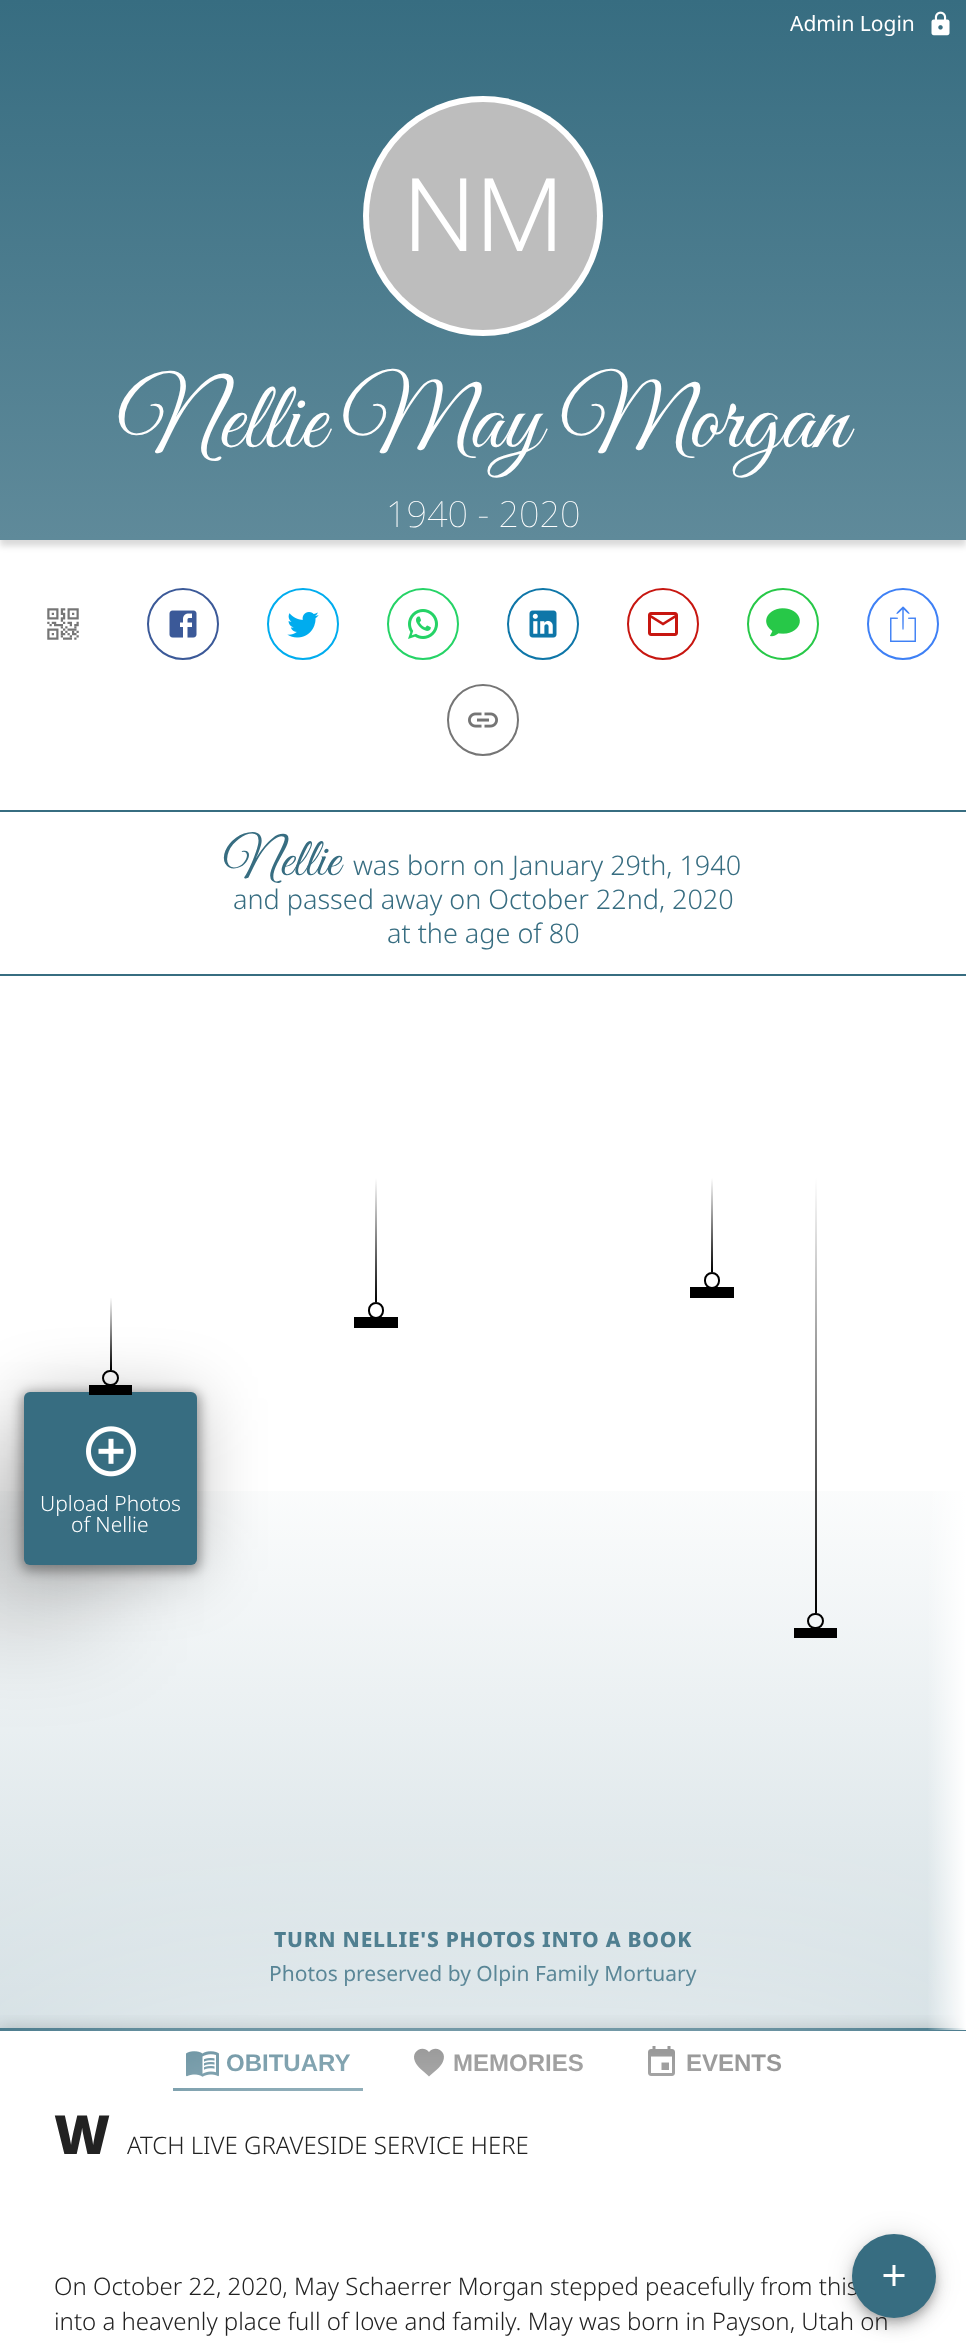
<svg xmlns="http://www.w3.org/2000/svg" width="966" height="2347">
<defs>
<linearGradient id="g1" gradientUnits="userSpaceOnUse" x1="483" y1="0" x2="483" y2="540"><stop offset="0" stop-color="#376d81"/><stop offset="1" stop-color="#5f8a9a"/></linearGradient>
<clipPath id="clip1"><rect x="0" y="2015" width="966" height="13"/></clipPath>
<linearGradient id="g2" gradientUnits="userSpaceOnUse" x1="483" y1="1035" x2="483" y2="2028"><stop offset="0.4" stop-color="#376d81" stop-opacity="0"/><stop offset="1" stop-color="#376d81" stop-opacity="0.22"/></linearGradient>
<linearGradient id="g3" gradientUnits="userSpaceOnUse" x1="110" y1="1297" x2="110" y2="1369"><stop offset="0" stop-color="#fff"/><stop offset="1" stop-color="#000"/></linearGradient>
<linearGradient id="g4" gradientUnits="userSpaceOnUse" x1="376" y1="1178" x2="376" y2="1302"><stop offset="0" stop-color="#fff"/><stop offset="1" stop-color="#000"/></linearGradient>
<linearGradient id="g5" gradientUnits="userSpaceOnUse" x1="712" y1="1178" x2="712" y2="1272"><stop offset="0" stop-color="#fff"/><stop offset="1" stop-color="#000"/></linearGradient>
<linearGradient id="g6" gradientUnits="userSpaceOnUse" x1="815" y1="1178" x2="815" y2="1613"><stop offset="0" stop-color="#fff"/><stop offset="1" stop-color="#000"/></linearGradient>
<linearGradient id="g7" gradientUnits="userSpaceOnUse" x1="927" y1="1532" x2="966" y2="1532"><stop offset="0" stop-color="#fff" stop-opacity="0"/><stop offset="1" stop-color="#fff"/></linearGradient>
</defs>
<rect width="100%" height="100%" fill="#fff"/>
<rect y="6" width="966" height="540" fill="#00000026" filter="blur(3px)"/>
<rect width="966" height="540" fill="url(#g1)"/>
<text x="790" y="31" style="font-family:Noto Sans;font-size:21px;fill:#fff">Admin Login</text>
<image x="931" y="11" width="19" height="25" href="media/1.png"/>
<circle cx="483" cy="216" r="120" fill="#fff"/>
<circle cx="483" cy="216" r="114" fill="#bdbdbd"/>
<text x="403" y="251" style="font-family:Roboto;font-size:102px;font-weight:300;fill:#fff">NM</text>
<text x="119" y="447" style="font-family:Great Vibes;font-size:96px;fill:#fff">Nellie May Morgan</text>
<text x="386" y="527" style="font-family:Noto Sans;font-size:36px;font-weight:100;fill:#fff">1940 - 2020</text>
<image x="47" y="608" width="32" height="32" href="media/2.png"/>
<circle cx="183" cy="624" r="35" fill="none" stroke="#3b5998" stroke-width="2"/>
<image x="169" y="610" width="28" height="28" href="media/3.png"/>
<circle cx="303" cy="624" r="35" fill="none" stroke="#00acee" stroke-width="2"/>
<image x="287" y="612" width="32" height="26" href="media/4.png"/>
<circle cx="423" cy="624" r="35" fill="none" stroke="#25d366" stroke-width="2"/>
<image x="408" y="609" width="30" height="30" href="media/5.png"/>
<circle cx="543" cy="624" r="35" fill="none" stroke="#0e76a8" stroke-width="2"/>
<image x="529" y="610" width="28" height="28" href="media/6.png"/>
<circle cx="663" cy="624" r="35" fill="none" stroke="#c71610" stroke-width="2"/>
<image x="648" y="612" width="30" height="24" href="media/7.png"/>
<circle cx="783" cy="624" r="35" fill="none" stroke="#27c848" stroke-width="2"/>
<image x="766" y="608" width="34" height="29" href="media/8.png"/>
<circle cx="903" cy="624" r="35" fill="none" stroke="#3e80f5" stroke-width="2"/>
<image x="890" y="606" width="26" height="36" href="media/9.png"/>
<circle cx="483" cy="720" r="35" fill="none" stroke="#757575" stroke-width="2"/>
<image x="468" y="712" width="30" height="16" href="media/10.png"/>
<rect y="810" width="966" height="2" fill="#376d81"/>
<rect y="974" width="966" height="2" fill="#376d81"/>
<text x="224" y="875" style="font-family:Great Vibes;font-size:54px;fill:#376d81">Nellie</text>
<text x="353" y="875" style="font-family:Noto Sans;font-size:27px;font-weight:300;fill:#376d81">was born on January 29th, 1940</text>
<text x="233" y="909" style="font-family:Noto Sans;font-size:27px;font-weight:300;fill:#376d81">and passed away on October 22nd, 2020</text>
<text x="387" y="943" style="font-family:Noto Sans;font-size:27px;font-weight:300;fill:#376d81">at the age of 80</text>
<g clip-path="url(#clip1)">
<rect x="-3" y="2028" width="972" height="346" fill="#00000040" filter="blur(9px)"/>
</g>
<rect y="1491" width="966" height="537" fill="url(#g2)"/>
<rect y="2028" width="966" height="3" fill="#376d81"/>
<rect x="24" y="1398" width="173" height="173" rx="6" fill="#00000040" filter="blur(33px)"/>
<rect x="-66" y="1458" width="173" height="173" rx="6" fill="#00000026" filter="blur(48px)"/>
<rect x="110" y="1298" width="2" height="72" fill="url(#g3)"/>
<rect x="21" y="1392" width="179" height="179" rx="9" fill="#00000059" filter="blur(6px)"/>
<rect x="24" y="1392" width="173" height="173" rx="6" fill="#376d81"/>
<rect x="89" y="1385" width="43" height="10" fill="#000"/>
<rect x="103" y="1371" width="15" height="14" rx="7" fill="none" stroke="#000" stroke-width="2"/>
<image x="86" y="1426" width="50" height="51" href="media/11.png"/>
<text x="40" y="1511" style="font-family:Noto Sans;font-size:21px;font-weight:300;fill:#fff">Upload Photos</text>
<text x="71" y="1532" style="font-family:Noto Sans;font-size:21px;font-weight:300;fill:#fff">of Nellie</text>
<rect x="375" y="1178" width="2" height="124" fill="url(#g4)"/>
<rect x="354" y="1317" width="44" height="11" fill="#000"/>
<rect x="369" y="1303" width="14" height="15" rx="7" fill="none" stroke="#000" stroke-width="2"/>
<rect x="711" y="1178" width="2" height="94" fill="url(#g5)"/>
<rect x="690" y="1287" width="44" height="11" fill="#000"/>
<rect x="705" y="1273" width="14" height="15" rx="7" fill="none" stroke="#000" stroke-width="2"/>
<rect x="815" y="1178" width="2" height="435" fill="url(#g6)"/>
<rect x="794" y="1628" width="43" height="10" fill="#000"/>
<rect x="808" y="1614" width="15" height="14" rx="7" fill="none" stroke="#000" stroke-width="2"/>
<rect x="928" y="1491" width="38" height="539" fill="url(#g7)"/>
<text x="274" y="1947" style="font-family:Noto Sans;font-size:21px;font-weight:800;letter-spacing:0.75px;fill:#376d81">TURN NELLIE'S PHOTOS INTO A BOOK</text>
<text x="269" y="1981" style="font-family:Noto Sans;font-size:21px;fill:#376d81">Photos preserved by Olpin Family Mortuary</text>
<image x="186" y="2051" width="33" height="26" href="media/12.png"/>
<text x="226" y="2071" style="font-family:Liberation Sans;font-size:24px;font-weight:bold;fill:#376d81">OBITUARY</text>
<path d="M429 2076.5c-4.5-4.5-11.5-9-14-15c-4.5-10 7.5-17 14-9.5c6.5-7.5 18.5-.5 14 9.5c-2.5 6-9 10.5-14 15z" fill="#666"/>
<text x="453" y="2071" style="font-family:Liberation Sans;font-size:24px;font-weight:bold;fill:#666">MEMORIES</text>
<image x="648" y="2046" width="27" height="30" href="media/13.png"/>
<text x="686" y="2071" style="font-family:Liberation Sans;font-size:24px;font-weight:bold;fill:#666">EVENTS</text>
<rect x="173" y="2088" width="190" height="3" fill="#376d81"/>
<rect x="48" y="2106" width="870" height="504" fill="#fff" filter="blur(150px)"/>
<text x="54" y="2154" style="font-family:Noto Sans;font-size:54px;font-weight:900;fill:#222">W</text>
<text x="127" y="2154" style="font-family:Noto Sans;font-size:24px;font-weight:300;fill:#222">ATCH LIVE GRAVESIDE SERVICE HERE</text>
<text x="54" y="2295" style="font-family:Noto Sans;font-size:24px;font-weight:300;fill:#222">On October 22, 2020, May Schaerrer Morgan stepped peacefully from this</text>
<text x="54" y="2330" style="font-family:Noto Sans;font-size:24px;font-weight:300;fill:#222">into a heavenly place full of love and family. May was born in Payson, Utah on</text>
<rect x="852" y="2235" width="84" height="84" rx="42" fill="#0000001f" filter="blur(13.5px)"/>
<rect x="852" y="2243" width="84" height="84" rx="42" fill="#00000024" filter="blur(7.5px)"/>
<rect x="854" y="2240" width="81" height="81" rx="40.5" fill="#00000033" filter="blur(4px)"/>
<circle cx="894" cy="2276" r="42" fill="#376d81"/>
<image x="883" y="2265" width="22" height="21" href="media/14.png"/>
</svg>
